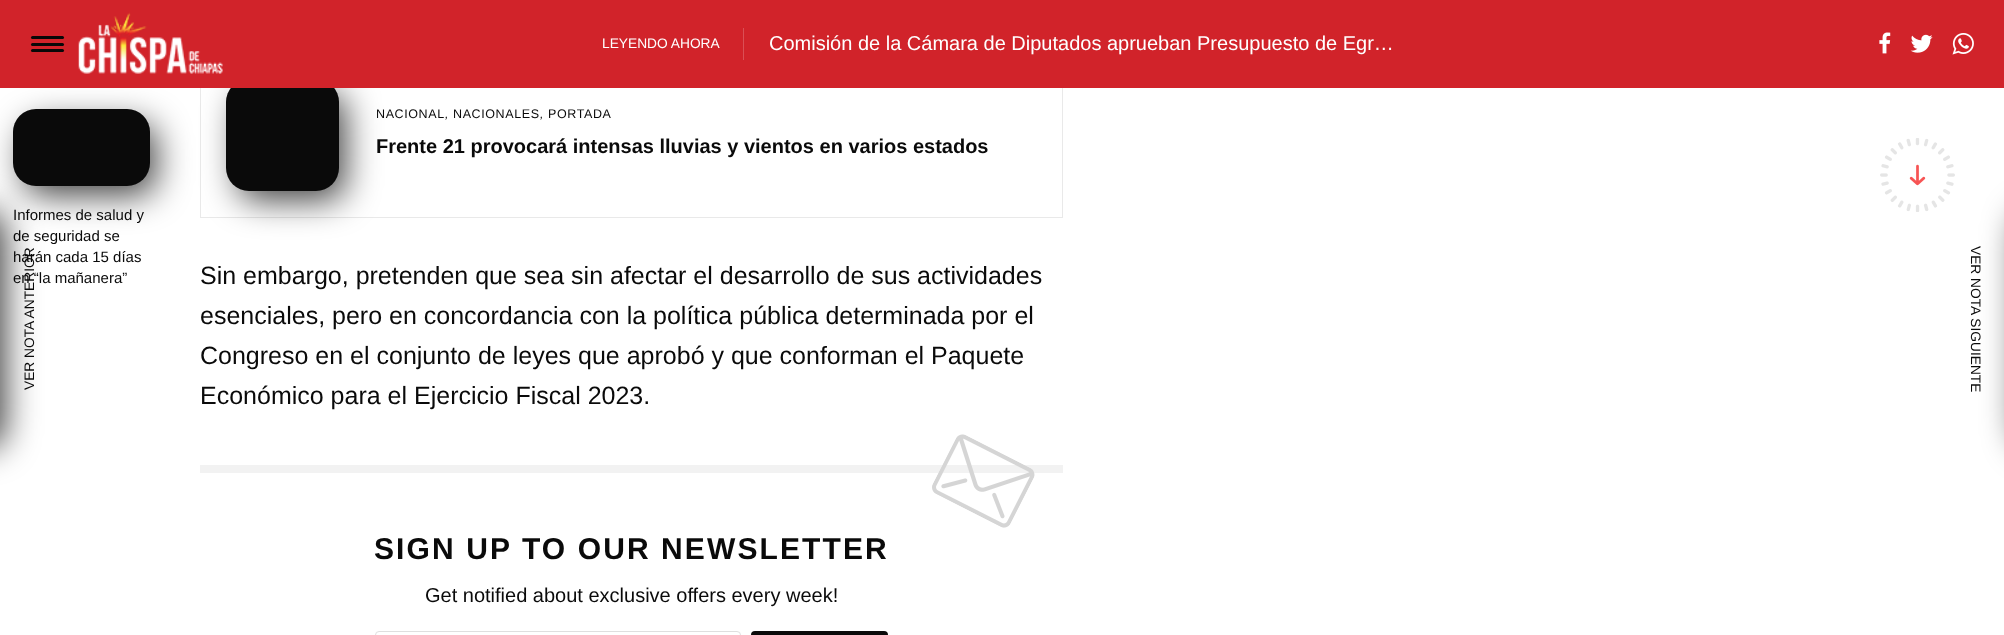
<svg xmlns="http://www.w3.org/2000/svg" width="2004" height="635">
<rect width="100%" height="100%" fill="#fff"/>
<rect x="24" y="123" width="132" height="72" rx="20" fill="#000000bf" filter="blur(17px)"/>
<rect x="200.5" y="53.5" width="862" height="164" fill="none" stroke="#e9e9e9"/>
<rect x="238" y="93" width="107" height="107" rx="20" fill="#000000bf" filter="blur(17px)"/>
<rect x="226" y="79" width="113" height="112" rx="23" fill="#0a0a0a"/>
<rect width="2004" height="88" fill="#d1232a"/>
<rect x="31" y="36" width="33" height="3" rx="1.5" fill="#080808"/>
<rect x="31" y="43" width="33" height="3" rx="1.5" fill="#080808"/>
<rect x="31" y="49" width="33" height="3" rx="1.5" fill="#080808"/>
<image x="78" y="12" width="145" height="62" href="media/1.png"/>
<text x="602" y="48" style="font-family:Liberation Sans;font-size:13.75px;fill:#fff">LEYENDO AHORA</text>
<rect x="743" y="28" width="1" height="32" fill="#da4f55"/>
<text x="769" y="50" style="font-family:Liberation Sans;font-size:20px;fill:#fff">Comisión de la Cámara de Diputados aprueban Presupuesto de Egr…</text>
<image x="1879" y="32" width="12" height="22" href="media/2.png"/>
<image x="1910" y="34" width="23" height="19" href="media/3.png"/>
<image x="1952" y="33" width="22" height="22" href="media/4.png"/>
<image x="1880" y="138" width="75" height="74" href="media/5.png"/>
<rect x="13" y="109" width="137" height="77" rx="23" fill="#0a0a0a"/>
<text x="13" y="220" style="font-family:Liberation Sans;font-size:15px;fill:#0a0a0a">Informes de salud y</text>
<text x="13" y="241" style="font-family:Liberation Sans;font-size:15px;fill:#0a0a0a">de seguridad se</text>
<text x="13" y="262" style="font-family:Liberation Sans;font-size:15px;fill:#0a0a0a">harán cada 15 días</text>
<text x="13" y="283" style="font-family:Liberation Sans;font-size:15px;fill:#0a0a0a">en “la mañanera”</text>
<text x="376" y="118" style="font-family:Liberation Sans;font-size:12.5px;letter-spacing:0.6px;fill:#0a0a0a">NACIONAL</text>
<text x="445" y="118" style="font-family:Liberation Sans;font-size:12.5px;font-style:italic;letter-spacing:0.6px;fill:#0a0a0a">,</text>
<text x="453" y="118" style="font-family:Liberation Sans;font-size:12.5px;letter-spacing:0.6px;fill:#0a0a0a">NACIONALES</text>
<text x="540" y="118" style="font-family:Liberation Sans;font-size:12.5px;font-style:italic;letter-spacing:0.6px;fill:#0a0a0a">,</text>
<text x="548" y="118" style="font-family:Liberation Sans;font-size:12.5px;letter-spacing:0.6px;fill:#0a0a0a">PORTADA</text>
<text x="376" y="153" style="font-family:Liberation Sans;font-size:20px;font-weight:bold;fill:#0a0a0a">Frente 21 provocará intensas lluvias y vientos en varios estados</text>
<text x="200" y="284" style="font-family:Liberation Sans;font-size:25px;fill:#0a0a0a">Sin embargo, pretenden que sea sin afectar el desarrollo de sus actividades</text>
<text x="200" y="324" style="font-family:Liberation Sans;font-size:25px;fill:#0a0a0a">esenciales, pero en concordancia con la política pública determinada por el</text>
<text x="200" y="364" style="font-family:Liberation Sans;font-size:25px;fill:#0a0a0a">Congreso en el conjunto de leyes que aprobó y que conforman el Paquete</text>
<text x="200" y="404" style="font-family:Liberation Sans;font-size:25px;fill:#0a0a0a">Económico para el Ejercicio Fiscal 2023.</text>
<rect x="200" y="465" width="863" height="8" fill="#f2f2f2"/>
<image x="932" y="434" width="103" height="94" href="media/6.png"/>
<text x="374" y="559" style="font-family:Liberation Sans;font-size:30px;font-weight:bold;letter-spacing:2.1px;fill:#0a0a0a">SIGN UP TO OUR NEWSLETTER</text>
<text x="425" y="602" style="font-family:Liberation Sans;font-size:20px;fill:#0a0a0a">Get notified about exclusive offers every week!</text>
<rect x="375.5" y="631.5" width="365" height="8" rx="3.5" fill="none" stroke="#dfdfdf"/>
<rect x="751" y="631" width="137" height="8" rx="4" fill="#0a0a0a"/>
<rect x="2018" y="211" width="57" height="237" rx="20" fill="#000000bf" filter="blur(17px)"/>
<text x="1971" y="246" transform="rotate(90 1971 246)" style="font-family:Liberation Sans;font-size:13.75px;fill:#0a0a0a">VER NOTA SIGUIENTE</text>
<rect x="-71" y="211" width="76" height="237" rx="20" fill="#000000bf" filter="blur(17px)"/>
<text x="34" y="390" transform="rotate(-90 34 390)" style="font-family:Liberation Sans;font-size:13.75px;fill:#0a0a0a">VER NOTA ANTERIOR</text>
</svg>
